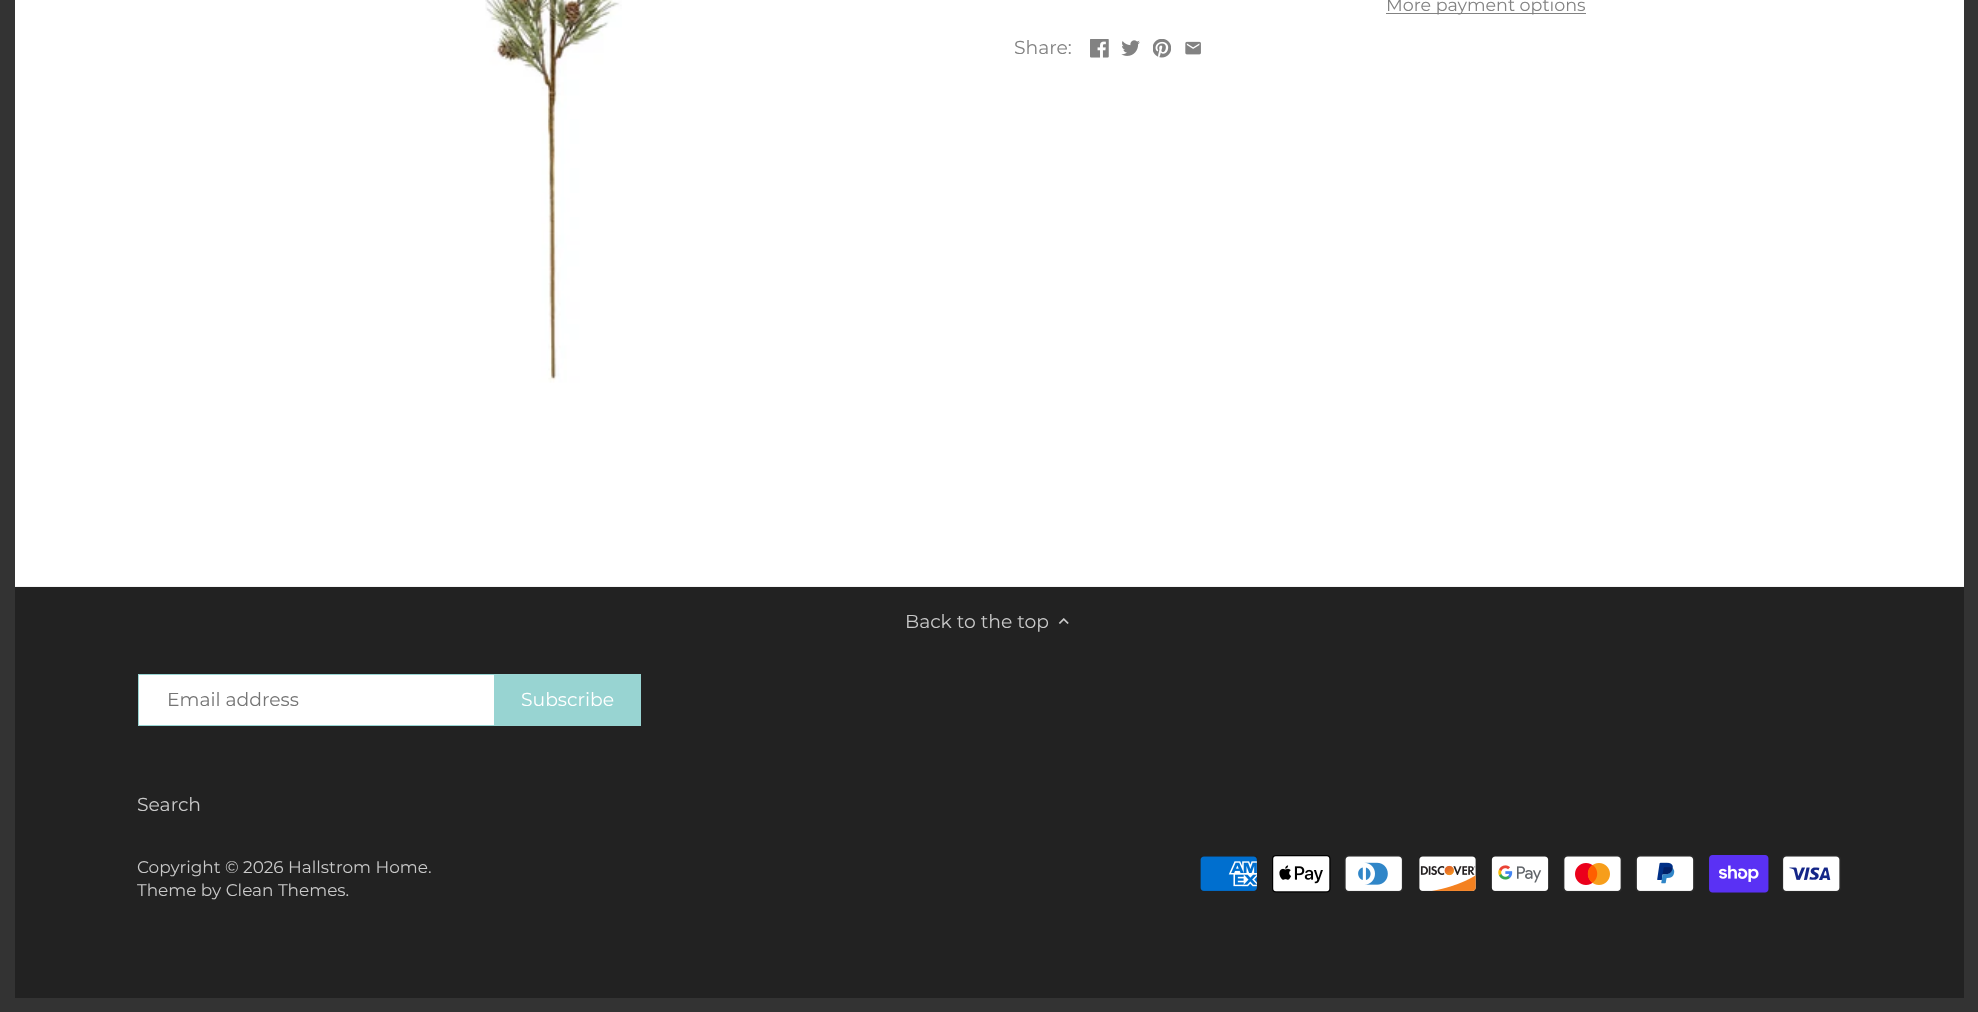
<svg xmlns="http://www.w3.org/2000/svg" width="1978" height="1012">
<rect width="100%" height="100%" fill="#222"/>
<rect x="7.5" y="-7.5" width="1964" height="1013" fill="none" stroke="#333" stroke-width="15"/>
<rect x="15" width="1949" height="586" fill="#fff"/>
<image x="485" y="0" width="137" height="383" href="media/1.png"/>
<rect x="1386" y="13" width="200" height="1" fill="#828282"/>
<text x="1386" y="11" style="font-family:Montserrat;font-size:17.5px;fill:#828282">More payment options</text>
<text x="1014" y="54" style="font-family:Montserrat;font-size:18.75px;fill:#828282">Share:</text>
<image x="1090" y="39" width="19" height="19" href="media/2.png"/>
<image x="1121" y="40" width="19" height="16" href="media/3.png"/>
<image x="1153" y="39" width="18" height="19" href="media/4.png"/>
<image x="1185" y="41" width="16" height="14" href="media/5.png"/>
<rect x="15" y="586" width="1949" height="1" fill="#f4f4f4"/>
<text x="905" y="628" style="font-family:Montserrat;font-size:18.75px;fill:#c9c9c9">Back to the top</text>
<image x="1058" y="618" width="11" height="6" href="media/6.png"/>
<rect x="139" y="675" width="355" height="50" fill="#fff"/>
<rect x="138.5" y="674.5" width="501" height="51" fill="none" stroke="#98d4d2"/>
<text x="167" y="706" style="font-family:Montserrat;font-size:18.75px;fill:#757575">Email address</text>
<rect x="494" y="674" width="147" height="52" fill="#98d4d2"/>
<text x="521" y="706" style="font-family:Montserrat;font-size:18.75px;fill:#fff">Subscribe</text>
<text x="137" y="811" style="font-family:Montserrat;font-size:18.75px;fill:#c9c9c9">Search</text>
<text x="137" y="873" style="font-family:Montserrat;font-size:16.9px;fill:#c9c9c9">Copyright © 2026 Hallstrom Home.</text>
<text x="137" y="896" style="font-family:Montserrat;font-size:16.9px;fill:#c9c9c9">Theme by Clean Themes.</text>
<image x="1200" y="856" width="57" height="35" href="media/7.png"/>
<image x="1272" y="855" width="59" height="38" href="media/8.png"/>
<image x="1344" y="855" width="59" height="37" href="media/9.png"/>
<image x="1419" y="856" width="57" height="35" href="media/10.png"/>
<image x="1491" y="856" width="58" height="35" href="media/11.png"/>
<image x="1563" y="855" width="59" height="37" href="media/12.png"/>
<image x="1635" y="855" width="60" height="37" href="media/13.png"/>
<image x="1709" y="855" width="60" height="38" href="media/14.png"/>
<image x="1782" y="855" width="59" height="37" href="media/15.png"/>
</svg>
